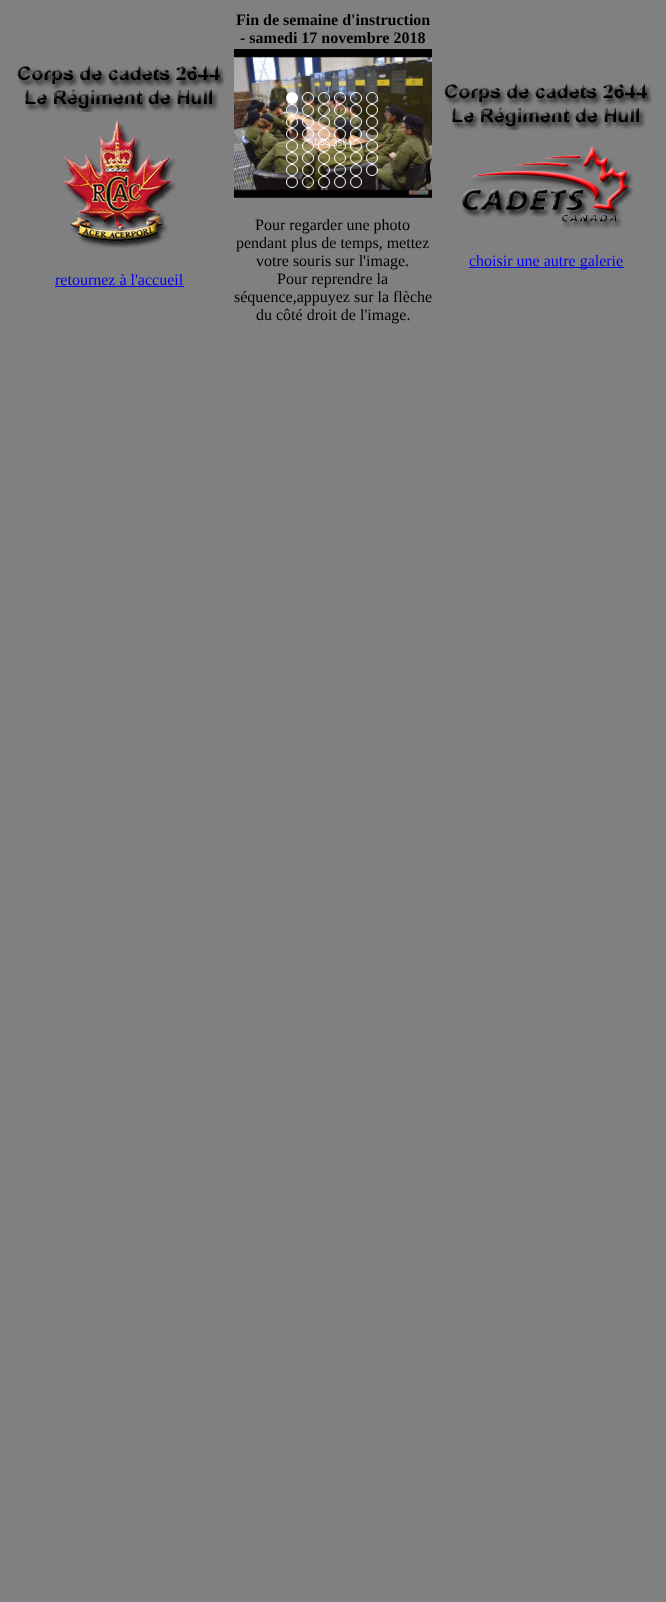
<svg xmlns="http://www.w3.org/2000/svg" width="666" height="1602">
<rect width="100%" height="100%" fill="#808080"/>
<text x="236" y="25" style="font-family:Liberation Serif;font-size:16px;font-weight:bold;fill:#000">Fin de semaine d'instruction</text>
<text x="240" y="43" style="font-family:Liberation Serif;font-size:16px;font-weight:bold;fill:#000">- samedi 17 novembre 2018</text>
<image x="234" y="49" width="198" height="149" href="media/1.png"/>
<circle cx="292" cy="98" r="6" fill="#fff"/>
<circle cx="308" cy="98" r="5.5" fill="none" stroke="#fff"/>
<circle cx="324" cy="98" r="5.5" fill="none" stroke="#fff"/>
<circle cx="340" cy="98" r="5.5" fill="none" stroke="#fff"/>
<circle cx="356" cy="98" r="5.5" fill="none" stroke="#fff"/>
<circle cx="372" cy="98" r="5.5" fill="none" stroke="#fff"/>
<circle cx="292" cy="110" r="5.5" fill="none" stroke="#fff"/>
<circle cx="308" cy="110" r="5.5" fill="none" stroke="#fff"/>
<circle cx="324" cy="110" r="5.5" fill="none" stroke="#fff"/>
<circle cx="340" cy="110" r="5.5" fill="none" stroke="#fff"/>
<circle cx="356" cy="110" r="5.5" fill="none" stroke="#fff"/>
<circle cx="372" cy="110" r="5.5" fill="none" stroke="#fff"/>
<circle cx="292" cy="122" r="5.5" fill="none" stroke="#fff"/>
<circle cx="308" cy="122" r="5.5" fill="none" stroke="#fff"/>
<circle cx="324" cy="122" r="5.5" fill="none" stroke="#fff"/>
<circle cx="340" cy="122" r="5.5" fill="none" stroke="#fff"/>
<circle cx="356" cy="122" r="5.5" fill="none" stroke="#fff"/>
<circle cx="372" cy="122" r="5.5" fill="none" stroke="#fff"/>
<circle cx="292" cy="134" r="5.5" fill="none" stroke="#fff"/>
<circle cx="308" cy="134" r="5.5" fill="none" stroke="#fff"/>
<circle cx="324" cy="134" r="5.5" fill="none" stroke="#fff"/>
<circle cx="340" cy="134" r="5.5" fill="none" stroke="#fff"/>
<circle cx="356" cy="134" r="5.5" fill="none" stroke="#fff"/>
<circle cx="372" cy="134" r="5.5" fill="none" stroke="#fff"/>
<circle cx="292" cy="146" r="5.5" fill="none" stroke="#fff"/>
<circle cx="308" cy="146" r="5.5" fill="none" stroke="#fff"/>
<circle cx="324" cy="146" r="5.5" fill="none" stroke="#fff"/>
<circle cx="340" cy="146" r="5.5" fill="none" stroke="#fff"/>
<circle cx="356" cy="146" r="5.5" fill="none" stroke="#fff"/>
<circle cx="372" cy="146" r="5.5" fill="none" stroke="#fff"/>
<circle cx="292" cy="158" r="5.5" fill="none" stroke="#fff"/>
<circle cx="308" cy="158" r="5.5" fill="none" stroke="#fff"/>
<circle cx="324" cy="158" r="5.5" fill="none" stroke="#fff"/>
<circle cx="340" cy="158" r="5.5" fill="none" stroke="#fff"/>
<circle cx="356" cy="158" r="5.5" fill="none" stroke="#fff"/>
<circle cx="372" cy="158" r="5.5" fill="none" stroke="#fff"/>
<circle cx="292" cy="170" r="5.5" fill="none" stroke="#fff"/>
<circle cx="308" cy="170" r="5.5" fill="none" stroke="#fff"/>
<circle cx="324" cy="170" r="5.5" fill="none" stroke="#fff"/>
<circle cx="340" cy="170" r="5.5" fill="none" stroke="#fff"/>
<circle cx="356" cy="170" r="5.5" fill="none" stroke="#fff"/>
<circle cx="372" cy="170" r="5.5" fill="none" stroke="#fff"/>
<circle cx="292" cy="182" r="5.5" fill="none" stroke="#fff"/>
<circle cx="308" cy="182" r="5.5" fill="none" stroke="#fff"/>
<circle cx="324" cy="182" r="5.5" fill="none" stroke="#fff"/>
<circle cx="340" cy="182" r="5.5" fill="none" stroke="#fff"/>
<circle cx="356" cy="182" r="5.5" fill="none" stroke="#fff"/>
<text x="314" y="145" style="font-family:'Slabo 27px';font-size:9.5px;fill:#fff">DSC_3584</text>
<text x="255" y="230" style="font-family:Liberation Serif;font-size:16px;fill:#000">Pour regarder une photo</text>
<text x="236" y="248" style="font-family:Liberation Serif;font-size:16px;fill:#000">pendant plus de temps, mettez</text>
<text x="256" y="266" style="font-family:Liberation Serif;font-size:16px;fill:#000">votre souris sur l'image.</text>
<text x="277" y="284" style="font-family:Liberation Serif;font-size:16px;fill:#000">Pour reprendre la</text>
<text x="234" y="302" style="font-family:Liberation Serif;font-size:16px;fill:#000">séquence,appuyez sur la flèche</text>
<text x="256" y="320" style="font-family:Liberation Serif;font-size:16px;fill:#000">du côté droit de l'image.</text>
<image x="444" y="83" width="208" height="47" href="media/2.png"/>
<image x="462" y="146" width="172" height="83" href="media/3.png"/>
<rect x="469" y="267" width="155" height="1" fill="#00e"/>
<text x="469" y="266" style="font-family:Liberation Serif;font-size:16px;fill:#00e">choisir une autre galerie</text>
<image x="17" y="65" width="208" height="47" href="media/2.png"/>
<image x="63" y="120" width="113" height="128" href="media/4.png"/>
<text x="55" y="285" style="font-family:Liberation Serif;font-size:16px;fill:#00e">retournez à l'accueil</text>
<rect x="55" y="286" width="129" height="1" fill="#00e"/>
</svg>
